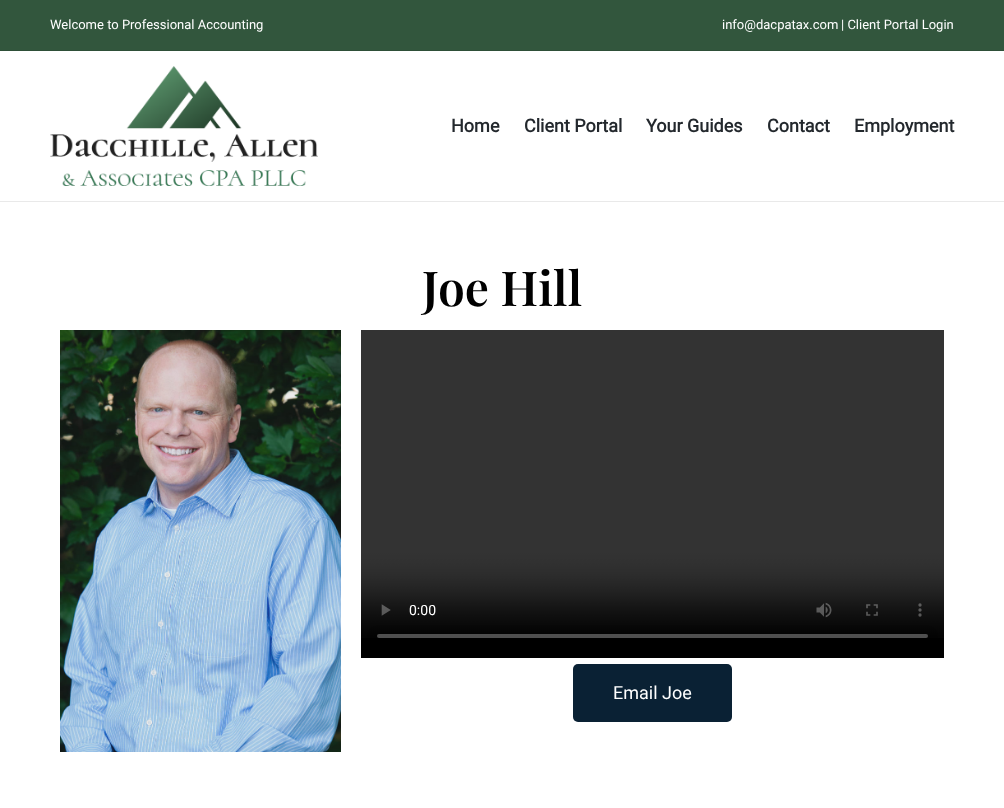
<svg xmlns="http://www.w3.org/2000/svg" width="1004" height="808">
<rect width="100%" height="100%" fill="#fff"/>
<rect width="1004" height="50" fill="#32563d"/>
<rect y="50" width="1004" height="1" fill="#2e4f38"/>
<text x="50" y="29" style="font-family:Roboto;font-size:13px;fill:#fff">Welcome to Professional Accounting</text>
<text x="722" y="29" style="font-family:Roboto;font-size:13px;fill:#fff">info@dacpatax.com</text>
<text x="841" y="29" style="font-family:Roboto;font-size:13px;fill:#fff">| Client Portal Login</text>
<rect y="201" width="1004" height="1" fill="#e9e9e9"/>
<image x="50" y="66" width="268" height="120" href="media/1.png"/>
<text x="451" y="132" style="font-family:Roboto;font-size:18px;font-weight:bold;fill:#23282d">Home</text>
<text x="524" y="132" style="font-family:Roboto;font-size:18px;font-weight:bold;fill:#23282d">Client Portal</text>
<text x="646" y="132" style="font-family:Roboto;font-size:18px;font-weight:bold;fill:#23282d">Your Guides</text>
<text x="767" y="132" style="font-family:Roboto;font-size:18px;font-weight:bold;fill:#23282d">Contact</text>
<text x="854" y="132" style="font-family:Roboto;font-size:18px;font-weight:bold;fill:#23282d">Employment</text>
<text x="422" y="306" style="font-family:Playfair Display;font-size:48px;font-weight:600;fill:#000">Joe Hill</text>
<image x="60" y="330" width="281" height="422" href="media/2.png"/>
<rect x="361" y="638" width="583" height="20" fill="#000"/>
<image x="361" y="330" width="583" height="308" href="media/3.png"/>
<rect x="573" y="664" width="159" height="58" rx="5" fill="#0a2134"/>
<text x="613" y="699" style="font-family:Roboto;font-size:18px;fill:#fff">Email Joe</text>
</svg>
